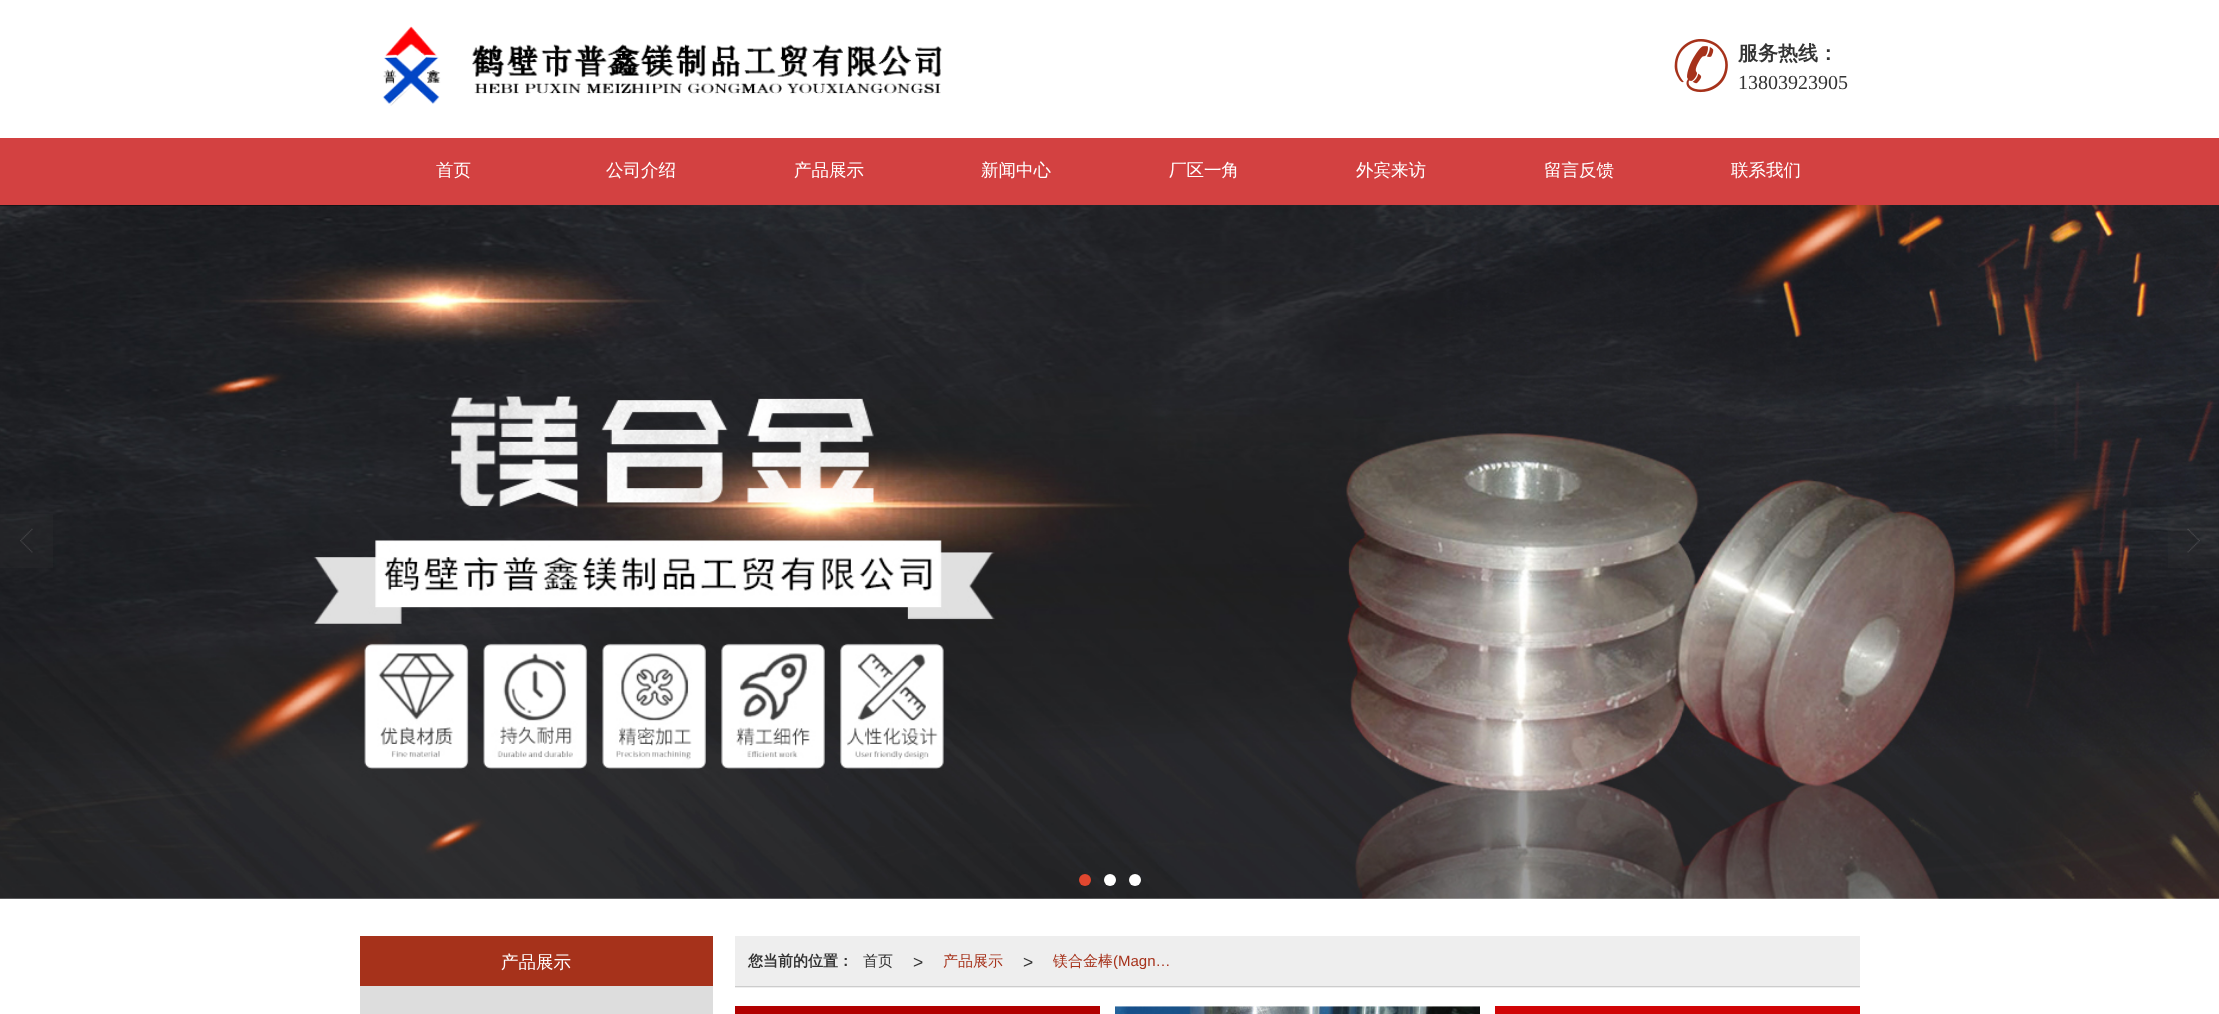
<svg xmlns="http://www.w3.org/2000/svg" width="2219" height="1014">
<rect width="100%" height="100%" fill="#fff"/>
<image x="382" y="26" width="560" height="80" href="media/1.png"/>
<image x="1674" y="39" width="54" height="54" href="media/2.png"/>
<text x="1738" y="60" style="font-family:WenQuanYi Zen Hei;font-size:20px;font-weight:bold;fill:#333">服务热线：</text>
<text x="1738" y="89" style="font-family:Liberation Serif;font-size:20px;fill:#333">13803923905</text>
<rect y="138" width="2219" height="67" fill="#d34141"/>
<text x="436" y="176" style="font-family:WenQuanYi Zen Hei;font-size:17.5px;font-weight:500;fill:#fff">首页</text>
<text x="606" y="176" style="font-family:WenQuanYi Zen Hei;font-size:17.5px;font-weight:500;fill:#fff">公司介绍</text>
<text x="794" y="176" style="font-family:WenQuanYi Zen Hei;font-size:17.5px;font-weight:500;fill:#fff">产品展示</text>
<text x="981" y="176" style="font-family:WenQuanYi Zen Hei;font-size:17.5px;font-weight:500;fill:#fff">新闻中心</text>
<text x="1169" y="176" style="font-family:WenQuanYi Zen Hei;font-size:17.5px;font-weight:500;fill:#fff">厂区一角</text>
<text x="1356" y="176" style="font-family:WenQuanYi Zen Hei;font-size:17.5px;font-weight:500;fill:#fff">外宾来访</text>
<text x="1544" y="176" style="font-family:WenQuanYi Zen Hei;font-size:17.5px;font-weight:500;fill:#fff">留言反馈</text>
<text x="1731" y="176" style="font-family:WenQuanYi Zen Hei;font-size:17.5px;font-weight:500;fill:#fff">联系我们</text>
<image x="0" y="205" width="2219" height="694" href="media/3.png"/>
<rect y="205" width="420" height="1" fill="#00000066"/>
<rect y="514" width="53" height="54" fill="#39393933"/>
<image x="20" y="528" width="13" height="25" href="media/4.png"/>
<rect x="2168" y="514" width="51" height="54" fill="#39393933"/>
<image x="2187" y="528" width="13" height="25" href="media/5.png"/>
<circle cx="1085" cy="880" r="6" fill="#e1472f"/>
<circle cx="1110" cy="880" r="6" fill="#fff"/>
<circle cx="1135" cy="880" r="6" fill="#fff"/>
<rect x="360" y="936" width="353" height="50" fill="#a6321b"/>
<text x="501" y="968" style="font-family:WenQuanYi Zen Hei;font-size:17.5px;font-weight:500;fill:#fff">产品展示</text>
<rect x="360" y="986" width="353" height="28" fill="#ddd"/>
<rect x="735" y="936" width="1125" height="52" fill="#eee"/>
<rect x="735" y="986" width="1125" height="1" fill="#ccc"/>
<text x="748" y="966" style="font-family:WenQuanYi Zen Hei;font-size:15px;font-weight:bold;fill:#333">您当前的位置：</text>
<text x="863" y="966" style="font-family:WenQuanYi Zen Hei;font-size:15px;font-weight:500;fill:#333">首页</text>
<text x="913" y="968" style="font-family:Liberation Sans;font-size:17.5px;fill:#333">&gt;</text>
<text x="943" y="966" style="font-family:WenQuanYi Zen Hei;font-size:15px;font-weight:500;fill:#a6321b">产品展示</text>
<text x="1023" y="968" style="font-family:Liberation Sans;font-size:17.5px;fill:#333">&gt;</text>
<text x="1053" y="966" style="font-family:WenQuanYi Zen Hei;font-size:15px;font-weight:500;fill:#a6321b">镁合金棒</text>
<text x="1113" y="966" style="font-family:Liberation Sans;font-size:15px;fill:#a6321b">(Magn…</text>
<rect x="735" y="1006" width="365" height="8" fill="#b20000"/>
<image x="1115" y="1006" width="365" height="8" href="media/6.png"/>
<rect x="1495" y="1006" width="365" height="8" fill="#d10506"/>
</svg>
